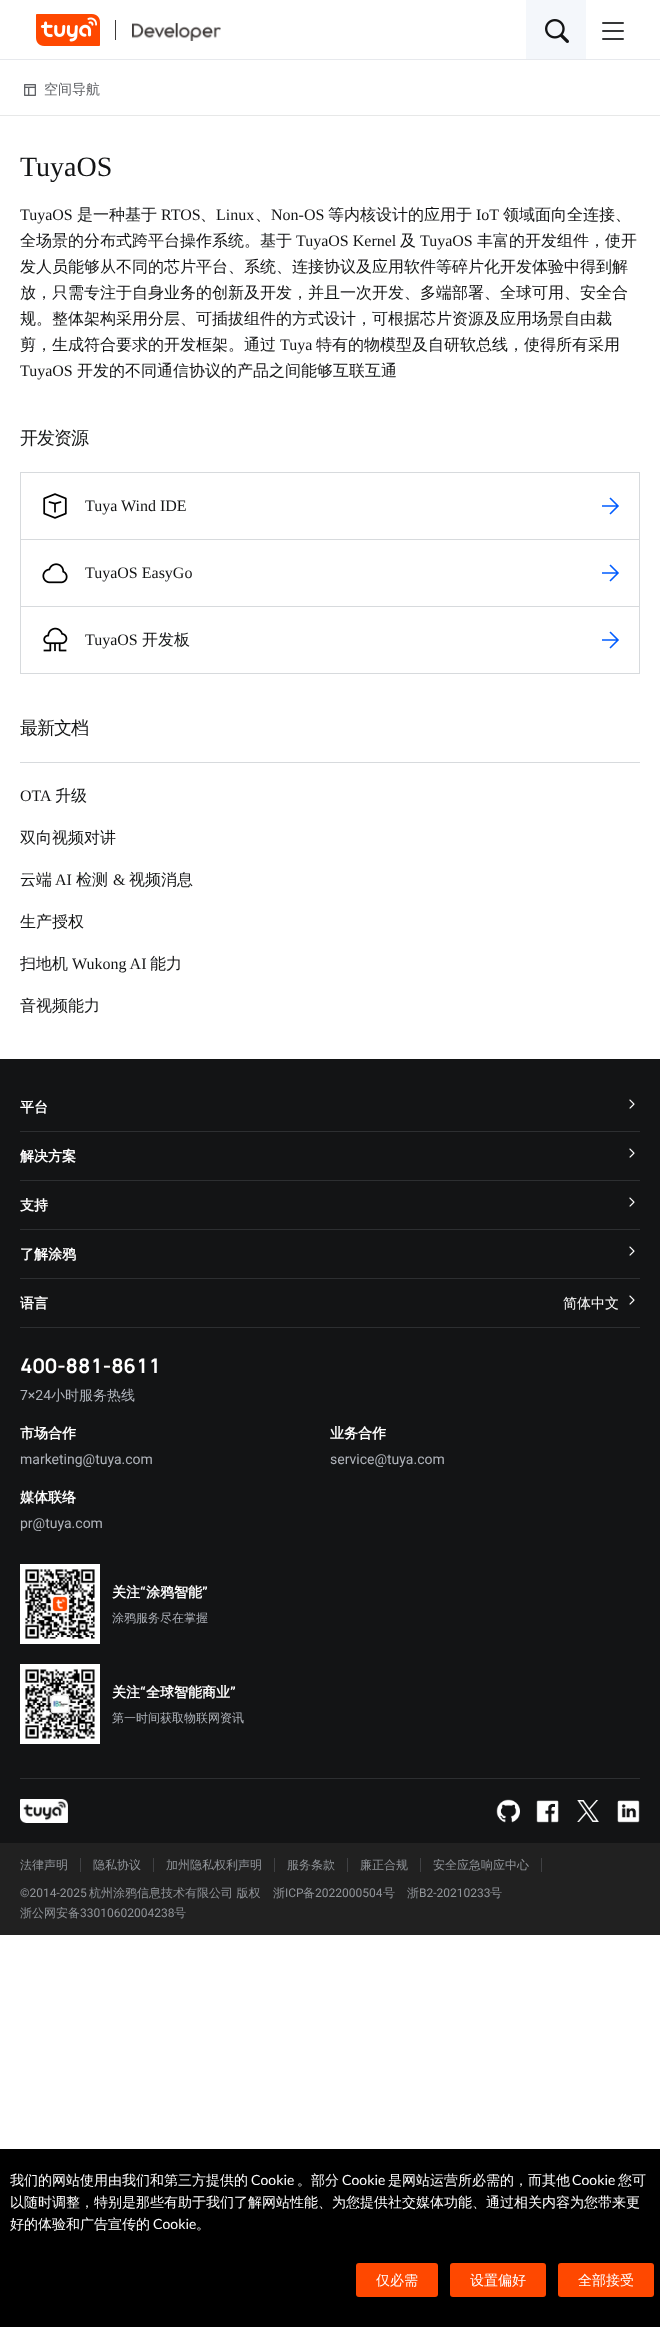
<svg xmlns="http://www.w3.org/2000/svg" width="660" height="2327">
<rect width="100%" height="100%" fill="#fff"/>
<image x="36" y="14" width="64" height="32" href="media/1.png"/>
<rect x="115" y="20" width="1" height="20" fill="#3e3a39"/>
<image x="132" y="23" width="89" height="18" href="media/2.png"/>
<rect x="526" width="60" height="59" fill="#f4f7fb"/>
<image x="545" y="19" width="24" height="24" href="media/3.png"/>
<rect x="602" y="22" width="22" height="2" rx="1" fill="#363738"/>
<rect x="602" y="30" width="22" height="2" rx="1" fill="#363738"/>
<rect x="602" y="38" width="22" height="2" rx="1" fill="#363738"/>
<rect y="59" width="660" height="1" fill="#e7e9ed"/>
<rect y="115" width="660" height="1" fill="#e7e8e8"/>
<image x="24" y="84" width="12" height="12" href="media/4.png"/>
<text x="44" y="94" style="font-family:WenQuanYi Zen Hei;font-size:14px;font-weight:500;fill:#606266">空间导航</text>
<text x="20" y="176" style="font-family:Liberation Serif;font-size:28px;fill:#131415">TuyaOS</text>
<text x="20" y="220" style="font-family:Liberation Serif;font-size:16px;fill:#131415">TuyaOS</text>
<text x="77" y="220" style="font-family:WenQuanYi Zen Hei;font-size:16px;font-weight:500;fill:#131415">是一种基于</text>
<text x="161" y="220" style="font-family:Liberation Serif;font-size:16px;fill:#131415">RTOS</text>
<text x="200" y="220" style="font-family:WenQuanYi Zen Hei;font-size:16px;font-weight:500;fill:#131415">、</text>
<text x="216" y="220" style="font-family:Liberation Serif;font-size:16px;fill:#131415">Linux</text>
<text x="255" y="220" style="font-family:WenQuanYi Zen Hei;font-size:16px;font-weight:500;fill:#131415">、</text>
<text x="271" y="220" style="font-family:Liberation Serif;font-size:16px;fill:#131415">Non-OS</text>
<text x="328" y="220" style="font-family:WenQuanYi Zen Hei;font-size:16px;font-weight:500;fill:#131415">等内核设计的应用于</text>
<text x="476" y="220" style="font-family:Liberation Serif;font-size:16px;fill:#131415">IoT</text>
<text x="503" y="220" style="font-family:WenQuanYi Zen Hei;font-size:16px;font-weight:500;fill:#131415">领域面向全连接、</text>
<text x="20" y="246" style="font-family:WenQuanYi Zen Hei;font-size:16px;font-weight:500;fill:#131415">全场景的分布式跨平台操作系统。基于</text>
<text x="296" y="246" style="font-family:Liberation Serif;font-size:16px;fill:#131415">TuyaOS Kernel</text>
<text x="400" y="246" style="font-family:WenQuanYi Zen Hei;font-size:16px;font-weight:500;fill:#131415">及</text>
<text x="420" y="246" style="font-family:Liberation Serif;font-size:16px;fill:#131415">TuyaOS</text>
<text x="477" y="246" style="font-family:WenQuanYi Zen Hei;font-size:16px;font-weight:500;fill:#131415">丰富的开发组件，使开</text>
<text x="20" y="272" style="font-family:WenQuanYi Zen Hei;font-size:16px;font-weight:500;fill:#131415">发人员能够从不同的芯片平台、系统、连接协议及应用软件等碎片化开发体验中得到解</text>
<text x="20" y="298" style="font-family:WenQuanYi Zen Hei;font-size:16px;font-weight:500;fill:#131415">放，只需专注于自身业务的创新及开发，并且一次开发、多端部署、全球可用、安全合</text>
<text x="20" y="324" style="font-family:WenQuanYi Zen Hei;font-size:16px;font-weight:500;fill:#131415">规。整体架构采用分层、可插拔组件的方式设计，可根据芯片资源及应用场景自由裁</text>
<text x="20" y="350" style="font-family:WenQuanYi Zen Hei;font-size:16px;font-weight:500;fill:#131415">剪，生成符合要求的开发框架。通过</text>
<text x="280" y="350" style="font-family:Liberation Serif;font-size:16px;fill:#131415">Tuya</text>
<text x="316" y="350" style="font-family:WenQuanYi Zen Hei;font-size:16px;font-weight:500;fill:#131415">特有的物模型及自研软总线，使得所有采用</text>
<text x="20" y="376" style="font-family:Liberation Serif;font-size:16px;fill:#131415">TuyaOS</text>
<text x="77" y="376" style="font-family:WenQuanYi Zen Hei;font-size:16px;font-weight:500;fill:#131415">开发的不同通信协议的产品之间能够互联互通</text>
<text x="20" y="444" style="font-family:WenQuanYi Zen Hei;font-size:18px;font-weight:500;letter-spacing:-1px;fill:#131415">开发资源</text>
<rect x="20" y="472" width="620" height="1" fill="#d7dadd"/>
<rect x="639" y="472" width="1" height="67" fill="#d7dadd"/>
<rect x="20" y="472" width="1" height="67" fill="#d7dadd"/>
<image x="43" y="493" width="24" height="26" href="media/5.png"/>
<text x="85" y="511" style="font-family:Liberation Serif;font-size:16px;fill:#131415">Tuya Wind IDE</text>
<path d="M602 506h16m-8-8l8 8l-8 8" fill="none" stroke="#005cff" stroke-width="1.6"/>
<rect x="20" y="539" width="620" height="1" fill="#d7dadd"/>
<rect x="639" y="539" width="1" height="67" fill="#d7dadd"/>
<rect x="20" y="539" width="1" height="67" fill="#d7dadd"/>
<image x="42" y="563" width="26" height="21" href="media/6.png"/>
<text x="85" y="578" style="font-family:Liberation Serif;font-size:16px;fill:#131415">TuyaOS EasyGo</text>
<path d="M602 573h16m-8-8l8 8l-8 8" fill="none" stroke="#005cff" stroke-width="1.6"/>
<rect x="20.5" y="606.5" width="619" height="67" fill="none" stroke="#d7dadd"/>
<image x="43" y="627" width="25" height="25" href="media/7.png"/>
<text x="85" y="645" style="font-family:Liberation Serif;font-size:16px;fill:#131415">TuyaOS</text>
<text x="142" y="645" style="font-family:WenQuanYi Zen Hei;font-size:16px;font-weight:500;fill:#131415">开发板</text>
<path d="M602 640h16m-8-8l8 8l-8 8" fill="none" stroke="#005cff" stroke-width="1.6"/>
<rect x="20" y="762" width="620" height="1" fill="#d7dadd"/>
<text x="20" y="734" style="font-family:WenQuanYi Zen Hei;font-size:18px;font-weight:500;letter-spacing:-1px;fill:#131415">最新文档</text>
<text x="20" y="801" style="font-family:Liberation Serif;font-size:16px;fill:#131415">OTA</text>
<text x="55" y="801" style="font-family:WenQuanYi Zen Hei;font-size:16px;font-weight:500;fill:#131415">升级</text>
<text x="20" y="843" style="font-family:WenQuanYi Zen Hei;font-size:16px;font-weight:500;fill:#131415">双向视频对讲</text>
<text x="20" y="885" style="font-family:WenQuanYi Zen Hei;font-size:16px;font-weight:500;fill:#131415">云端</text>
<text x="55" y="885" style="font-family:Liberation Serif;font-size:16px;fill:#131415">AI</text>
<text x="76" y="885" style="font-family:WenQuanYi Zen Hei;font-size:16px;font-weight:500;fill:#131415">检测</text>
<text x="113" y="885" style="font-family:Liberation Serif;font-size:16px;fill:#131415">&amp;</text>
<text x="129" y="885" style="font-family:WenQuanYi Zen Hei;font-size:16px;font-weight:500;fill:#131415">视频消息</text>
<text x="20" y="927" style="font-family:WenQuanYi Zen Hei;font-size:16px;font-weight:500;fill:#131415">生产授权</text>
<text x="20" y="969" style="font-family:WenQuanYi Zen Hei;font-size:16px;font-weight:500;fill:#131415">扫地机</text>
<text x="72" y="969" style="font-family:Liberation Serif;font-size:16px;fill:#131415">Wukong AI</text>
<text x="150" y="969" style="font-family:WenQuanYi Zen Hei;font-size:16px;font-weight:500;fill:#131415">能力</text>
<text x="20" y="1011" style="font-family:WenQuanYi Zen Hei;font-size:16px;font-weight:500;fill:#131415">音视频能力</text>
<rect y="1059" width="660" height="784" fill="#131415"/>
<rect x="20" y="1131" width="620" height="1" fill="#2d2f31"/>
<text x="20" y="1112" style="font-family:WenQuanYi Zen Hei;font-size:14px;font-weight:bold;fill:#fff">平台</text>
<image x="629" y="1099" width="6" height="10" href="media/8.png"/>
<rect x="20" y="1180" width="620" height="1" fill="#2d2f31"/>
<text x="20" y="1161" style="font-family:WenQuanYi Zen Hei;font-size:14px;font-weight:bold;fill:#fff">解决方案</text>
<image x="629" y="1148" width="6" height="10" href="media/8.png"/>
<rect x="20" y="1229" width="620" height="1" fill="#2d2f31"/>
<text x="20" y="1210" style="font-family:WenQuanYi Zen Hei;font-size:14px;font-weight:bold;fill:#fff">支持</text>
<image x="629" y="1197" width="6" height="10" href="media/8.png"/>
<rect x="20" y="1278" width="620" height="1" fill="#2d2f31"/>
<text x="20" y="1259" style="font-family:WenQuanYi Zen Hei;font-size:14px;font-weight:bold;fill:#fff">了解涂鸦</text>
<image x="629" y="1246" width="6" height="10" href="media/8.png"/>
<rect x="20" y="1327" width="620" height="1" fill="#2d2f31"/>
<text x="20" y="1308" style="font-family:WenQuanYi Zen Hei;font-size:14px;font-weight:bold;fill:#fff">语言</text>
<text x="563" y="1308" style="font-family:WenQuanYi Zen Hei;font-size:14px;font-weight:500;fill:#fff">简体中文</text>
<image x="629" y="1295" width="6" height="10" href="media/8.png"/>
<rect x="20" y="1778" width="620" height="1" fill="#2d2f31"/>
<text x="20" y="1373" style="font-family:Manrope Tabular;font-size:20px;font-weight:bold;fill:#fff">400-881-8611</text>
<text x="20" y="1400" style="font-family:Roboto;font-size:14px;fill:#b0b4bb">7×24</text>
<text x="51" y="1400" style="font-family:WenQuanYi Zen Hei;font-size:14px;font-weight:500;fill:#b0b4bb">小时服务热线</text>
<text x="20" y="1438" style="font-family:WenQuanYi Zen Hei;font-size:14px;font-weight:bold;fill:#fff">市场合作</text>
<text x="20" y="1464" style="font-family:Roboto;font-size:14px;fill:#b0b4bb">marketing@tuya.com</text>
<text x="330" y="1438" style="font-family:WenQuanYi Zen Hei;font-size:14px;font-weight:bold;fill:#fff">业务合作</text>
<text x="330" y="1464" style="font-family:Roboto;font-size:14px;fill:#b0b4bb">service@tuya.com</text>
<text x="20" y="1502" style="font-family:WenQuanYi Zen Hei;font-size:14px;font-weight:bold;fill:#fff">媒体联络</text>
<text x="20" y="1528" style="font-family:Roboto;font-size:14px;fill:#b0b4bb">pr@tuya.com</text>
<image x="20" y="1564" width="80" height="80" href="media/9.png"/>
<text x="112" y="1597" style="font-family:WenQuanYi Zen Hei;font-size:14px;font-weight:bold;fill:#fff">关注</text>
<text x="140" y="1597" style="font-family:Roboto;font-size:14px;font-weight:bold;fill:#fff">“</text>
<text x="146" y="1597" style="font-family:WenQuanYi Zen Hei;font-size:14px;font-weight:bold;fill:#fff">涂鸦智能</text>
<text x="202" y="1597" style="font-family:Roboto;font-size:14px;font-weight:bold;fill:#fff">”</text>
<text x="112" y="1622" style="font-family:WenQuanYi Zen Hei;font-size:12px;font-weight:500;fill:#b0b4bb">涂鸦服务尽在掌握</text>
<image x="20" y="1664" width="80" height="80" href="media/10.png"/>
<text x="112" y="1697" style="font-family:WenQuanYi Zen Hei;font-size:14px;font-weight:bold;fill:#fff">关注</text>
<text x="140" y="1697" style="font-family:Roboto;font-size:14px;font-weight:bold;fill:#fff">“</text>
<text x="146" y="1697" style="font-family:WenQuanYi Zen Hei;font-size:14px;font-weight:bold;fill:#fff">全球智能商业</text>
<text x="230" y="1697" style="font-family:Roboto;font-size:14px;font-weight:bold;fill:#fff">”</text>
<text x="112" y="1722" style="font-family:WenQuanYi Zen Hei;font-size:12px;font-weight:500;fill:#b0b4bb">第一时间获取物联网资讯</text>
<image x="20" y="1799" width="48" height="24" href="media/11.png"/>
<image x="496" y="1799" width="24" height="24" href="media/12.png"/>
<image x="536" y="1800" width="23" height="23" href="media/13.png"/>
<image x="577" y="1800" width="22" height="22" href="media/14.png"/>
<image x="617" y="1800" width="23" height="23" href="media/15.png"/>
<rect y="1843" width="660" height="92" fill="#212121"/>
<text x="20" y="1869" style="font-family:WenQuanYi Zen Hei;font-size:12px;font-weight:500;fill:#91959a">法律声明</text>
<rect x="80" y="1858" width="1" height="14" fill="#404144"/>
<text x="93" y="1869" style="font-family:WenQuanYi Zen Hei;font-size:12px;font-weight:500;fill:#91959a">隐私协议</text>
<rect x="153" y="1858" width="1" height="14" fill="#404144"/>
<text x="166" y="1869" style="font-family:WenQuanYi Zen Hei;font-size:12px;font-weight:500;fill:#91959a">加州隐私权利声明</text>
<rect x="274" y="1858" width="1" height="14" fill="#404144"/>
<text x="287" y="1869" style="font-family:WenQuanYi Zen Hei;font-size:12px;font-weight:500;fill:#91959a">服务条款</text>
<rect x="347" y="1858" width="1" height="14" fill="#404144"/>
<text x="360" y="1869" style="font-family:WenQuanYi Zen Hei;font-size:12px;font-weight:500;fill:#91959a">廉正合规</text>
<rect x="420" y="1858" width="1" height="14" fill="#404144"/>
<text x="433" y="1869" style="font-family:WenQuanYi Zen Hei;font-size:12px;font-weight:500;fill:#91959a">安全应急响应中心</text>
<rect x="541" y="1858" width="1" height="14" fill="#404144"/>
<text x="20" y="1897" style="font-family:Roboto;font-size:12px;fill:#91959a">©2014-2025</text>
<text x="89" y="1897" style="font-family:WenQuanYi Zen Hei;font-size:12px;font-weight:500;fill:#91959a">杭州涂鸦信息技术有限公司 版权</text>
<text x="273" y="1897" style="font-family:WenQuanYi Zen Hei;font-size:12px;font-weight:500;fill:#91959a">浙</text>
<text x="285" y="1897" style="font-family:Roboto;font-size:12px;fill:#91959a">ICP</text>
<text x="303" y="1897" style="font-family:WenQuanYi Zen Hei;font-size:12px;font-weight:500;fill:#91959a">备</text>
<text x="315" y="1897" style="font-family:Roboto;font-size:12px;fill:#91959a">2022000504</text>
<text x="383" y="1897" style="font-family:WenQuanYi Zen Hei;font-size:12px;font-weight:500;fill:#91959a">号</text>
<text x="407" y="1897" style="font-family:WenQuanYi Zen Hei;font-size:12px;font-weight:500;fill:#91959a">浙</text>
<text x="419" y="1897" style="font-family:Roboto;font-size:12px;fill:#91959a">B2-20210233</text>
<text x="490" y="1897" style="font-family:WenQuanYi Zen Hei;font-size:12px;font-weight:500;fill:#91959a">号</text>
<text x="20" y="1917" style="font-family:WenQuanYi Zen Hei;font-size:12px;font-weight:500;fill:#91959a">浙公网安备</text>
<text x="80" y="1917" style="font-family:Roboto;font-size:12px;fill:#91959a">33010602004238</text>
<text x="174" y="1917" style="font-family:WenQuanYi Zen Hei;font-size:12px;font-weight:500;fill:#91959a">号</text>
<rect y="2149" width="660" height="178" fill="#000"/>
<text x="10" y="2185" style="font-family:WenQuanYi Zen Hei;font-size:14px;font-weight:500;fill:#fff">我们的网站使用由我们和第三方提供的</text>
<text x="251" y="2185" style="font-family:Lato;font-size:14px;fill:#fff">Cookie</text>
<text x="297" y="2185" style="font-family:WenQuanYi Zen Hei;font-size:14px;font-weight:500;fill:#fff">。部分</text>
<text x="342" y="2185" style="font-family:Lato;font-size:14px;fill:#fff">Cookie</text>
<text x="388" y="2185" style="font-family:WenQuanYi Zen Hei;font-size:14px;font-weight:500;fill:#fff">是网站运营所必需的，而其他</text>
<text x="572" y="2185" style="font-family:Lato;font-size:14px;fill:#fff">Cookie</text>
<text x="618" y="2185" style="font-family:WenQuanYi Zen Hei;font-size:14px;font-weight:500;fill:#fff">您可</text>
<text x="10" y="2207" style="font-family:WenQuanYi Zen Hei;font-size:14px;font-weight:500;fill:#fff">以随时调整，特别是那些有助于我们了解网站性能、为您提供社交媒体功能、通过相关内容为您带来更</text>
<text x="10" y="2229" style="font-family:WenQuanYi Zen Hei;font-size:14px;font-weight:500;fill:#fff">好的体验和广告宣传的</text>
<text x="153" y="2229" style="font-family:Lato;font-size:14px;fill:#fff">Cookie</text>
<text x="196" y="2229" style="font-family:WenQuanYi Zen Hei;font-size:14px;font-weight:500;fill:#fff">。</text>
<rect x="356" y="2263" width="82" height="34" rx="3" fill="#ff4800"/>
<text x="376" y="2285" style="font-family:WenQuanYi Zen Hei;font-size:14px;font-weight:500;fill:#fff">仅必需</text>
<rect x="450" y="2263" width="96" height="34" rx="3" fill="#ff4800"/>
<text x="470" y="2285" style="font-family:WenQuanYi Zen Hei;font-size:14px;font-weight:500;fill:#fff">设置偏好</text>
<rect x="558" y="2263" width="96" height="34" rx="3" fill="#ff4800"/>
<text x="578" y="2285" style="font-family:WenQuanYi Zen Hei;font-size:14px;font-weight:500;fill:#fff">全部接受</text>
</svg>
